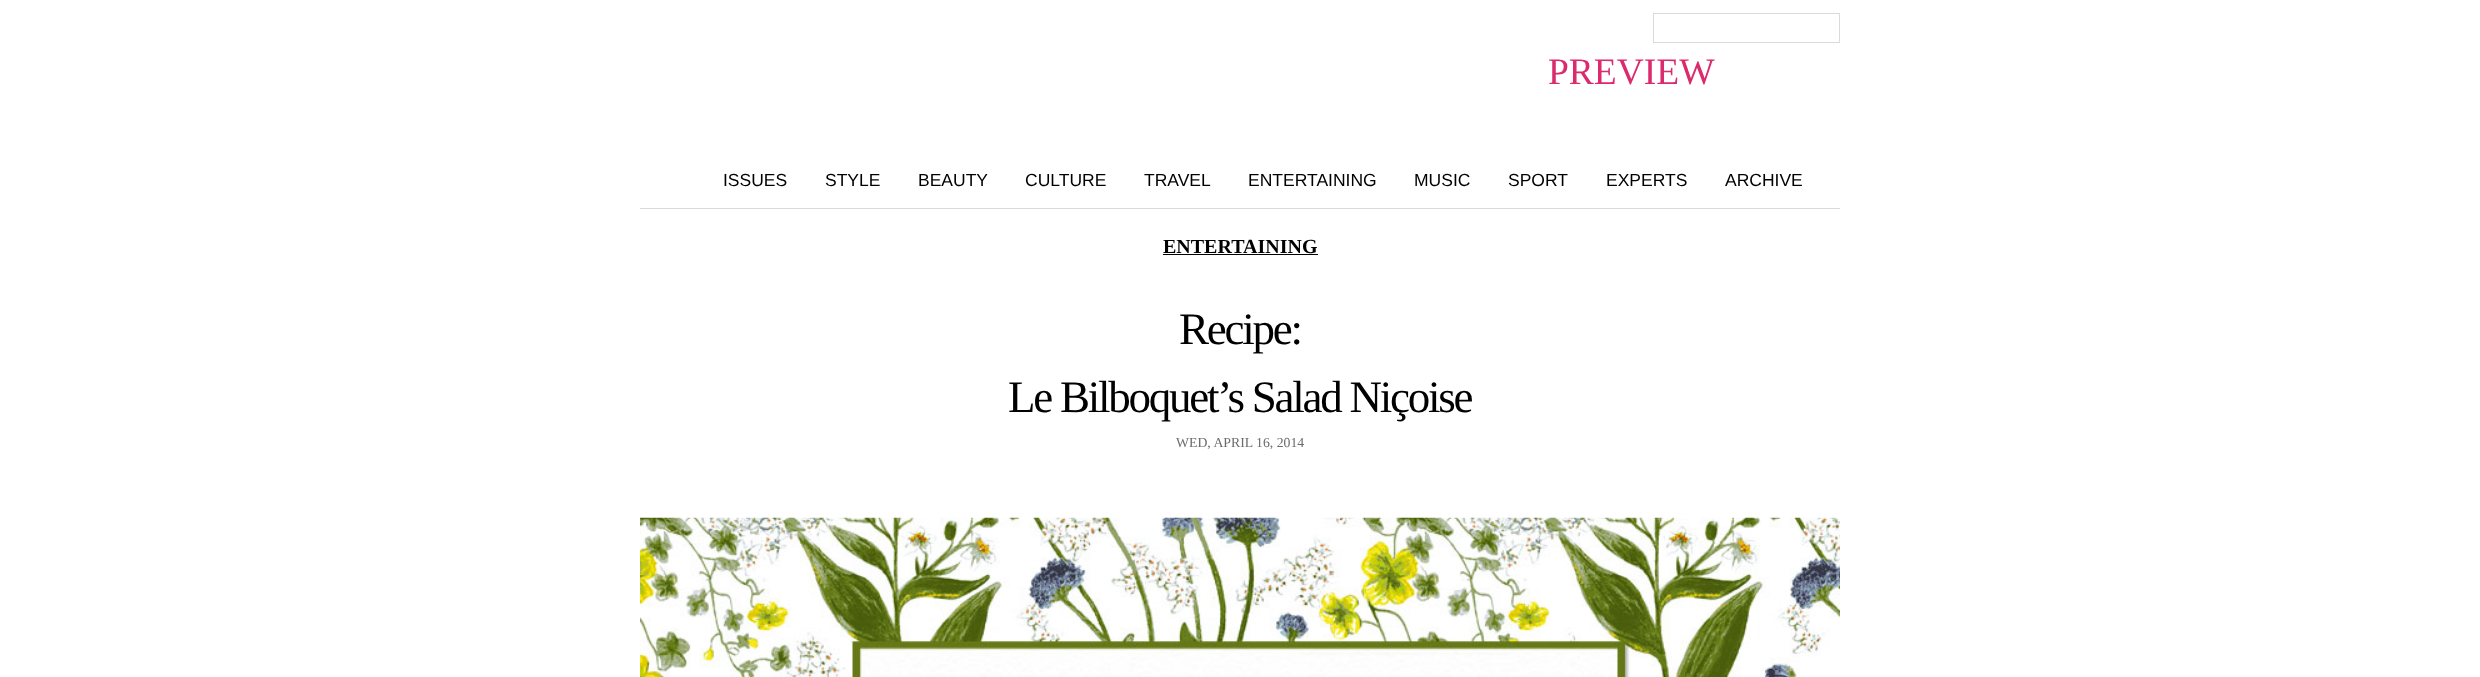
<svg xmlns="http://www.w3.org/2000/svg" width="2480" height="677">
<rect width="100%" height="100%" fill="#fff"/>
<rect x="1653.5" y="13.5" width="186" height="29" fill="none" stroke="#dadada"/>
<text x="1548" y="84" style="font-family:Liberation Serif;font-size:37.5px;fill:#db2b6d">PREVIEW</text>
<rect x="640" y="208" width="1200" height="1" fill="#dadada"/>
<text x="723" y="186" style="font-family:Liberation Sans;font-size:17.5px;fill:#000">ISSUES</text>
<text x="825" y="186" style="font-family:Liberation Sans;font-size:17.5px;fill:#000">STYLE</text>
<text x="918" y="186" style="font-family:Liberation Sans;font-size:17.5px;fill:#000">BEAUTY</text>
<text x="1025" y="186" style="font-family:Liberation Sans;font-size:17.5px;fill:#000">CULTURE</text>
<text x="1144" y="186" style="font-family:Liberation Sans;font-size:17.5px;fill:#000">TRAVEL</text>
<text x="1248" y="186" style="font-family:Liberation Sans;font-size:17.5px;fill:#000">ENTERTAINING</text>
<text x="1414" y="186" style="font-family:Liberation Sans;font-size:17.5px;fill:#000">MUSIC</text>
<text x="1508" y="186" style="font-family:Liberation Sans;font-size:17.5px;fill:#000">SPORT</text>
<text x="1606" y="186" style="font-family:Liberation Sans;font-size:17.5px;fill:#000">EXPERTS</text>
<text x="1725" y="186" style="font-family:Liberation Sans;font-size:17.5px;fill:#000">ARCHIVE</text>
<text x="1163" y="253" style="font-family:Liberation Serif;font-size:20px;font-weight:bold;fill:#000">ENTERTAINING</text>
<rect x="1163" y="254" width="155" height="1" fill="#000"/>
<text x="1179" y="344" style="font-family:Liberation Serif;font-size:45px;letter-spacing:-2.25px;fill:#000">Recipe:</text>
<text x="1008" y="412" style="font-family:Liberation Serif;font-size:45px;letter-spacing:-2.25px;fill:#000">Le Bilboquet’s Salad Niçoise</text>
<text x="1176" y="447" style="font-family:Liberation Serif;font-size:13.75px;fill:#6b6b6b">WED, APRIL 16, 2014</text>
<image x="640" y="517" width="1200" height="160" href="media/1.png"/>
</svg>
